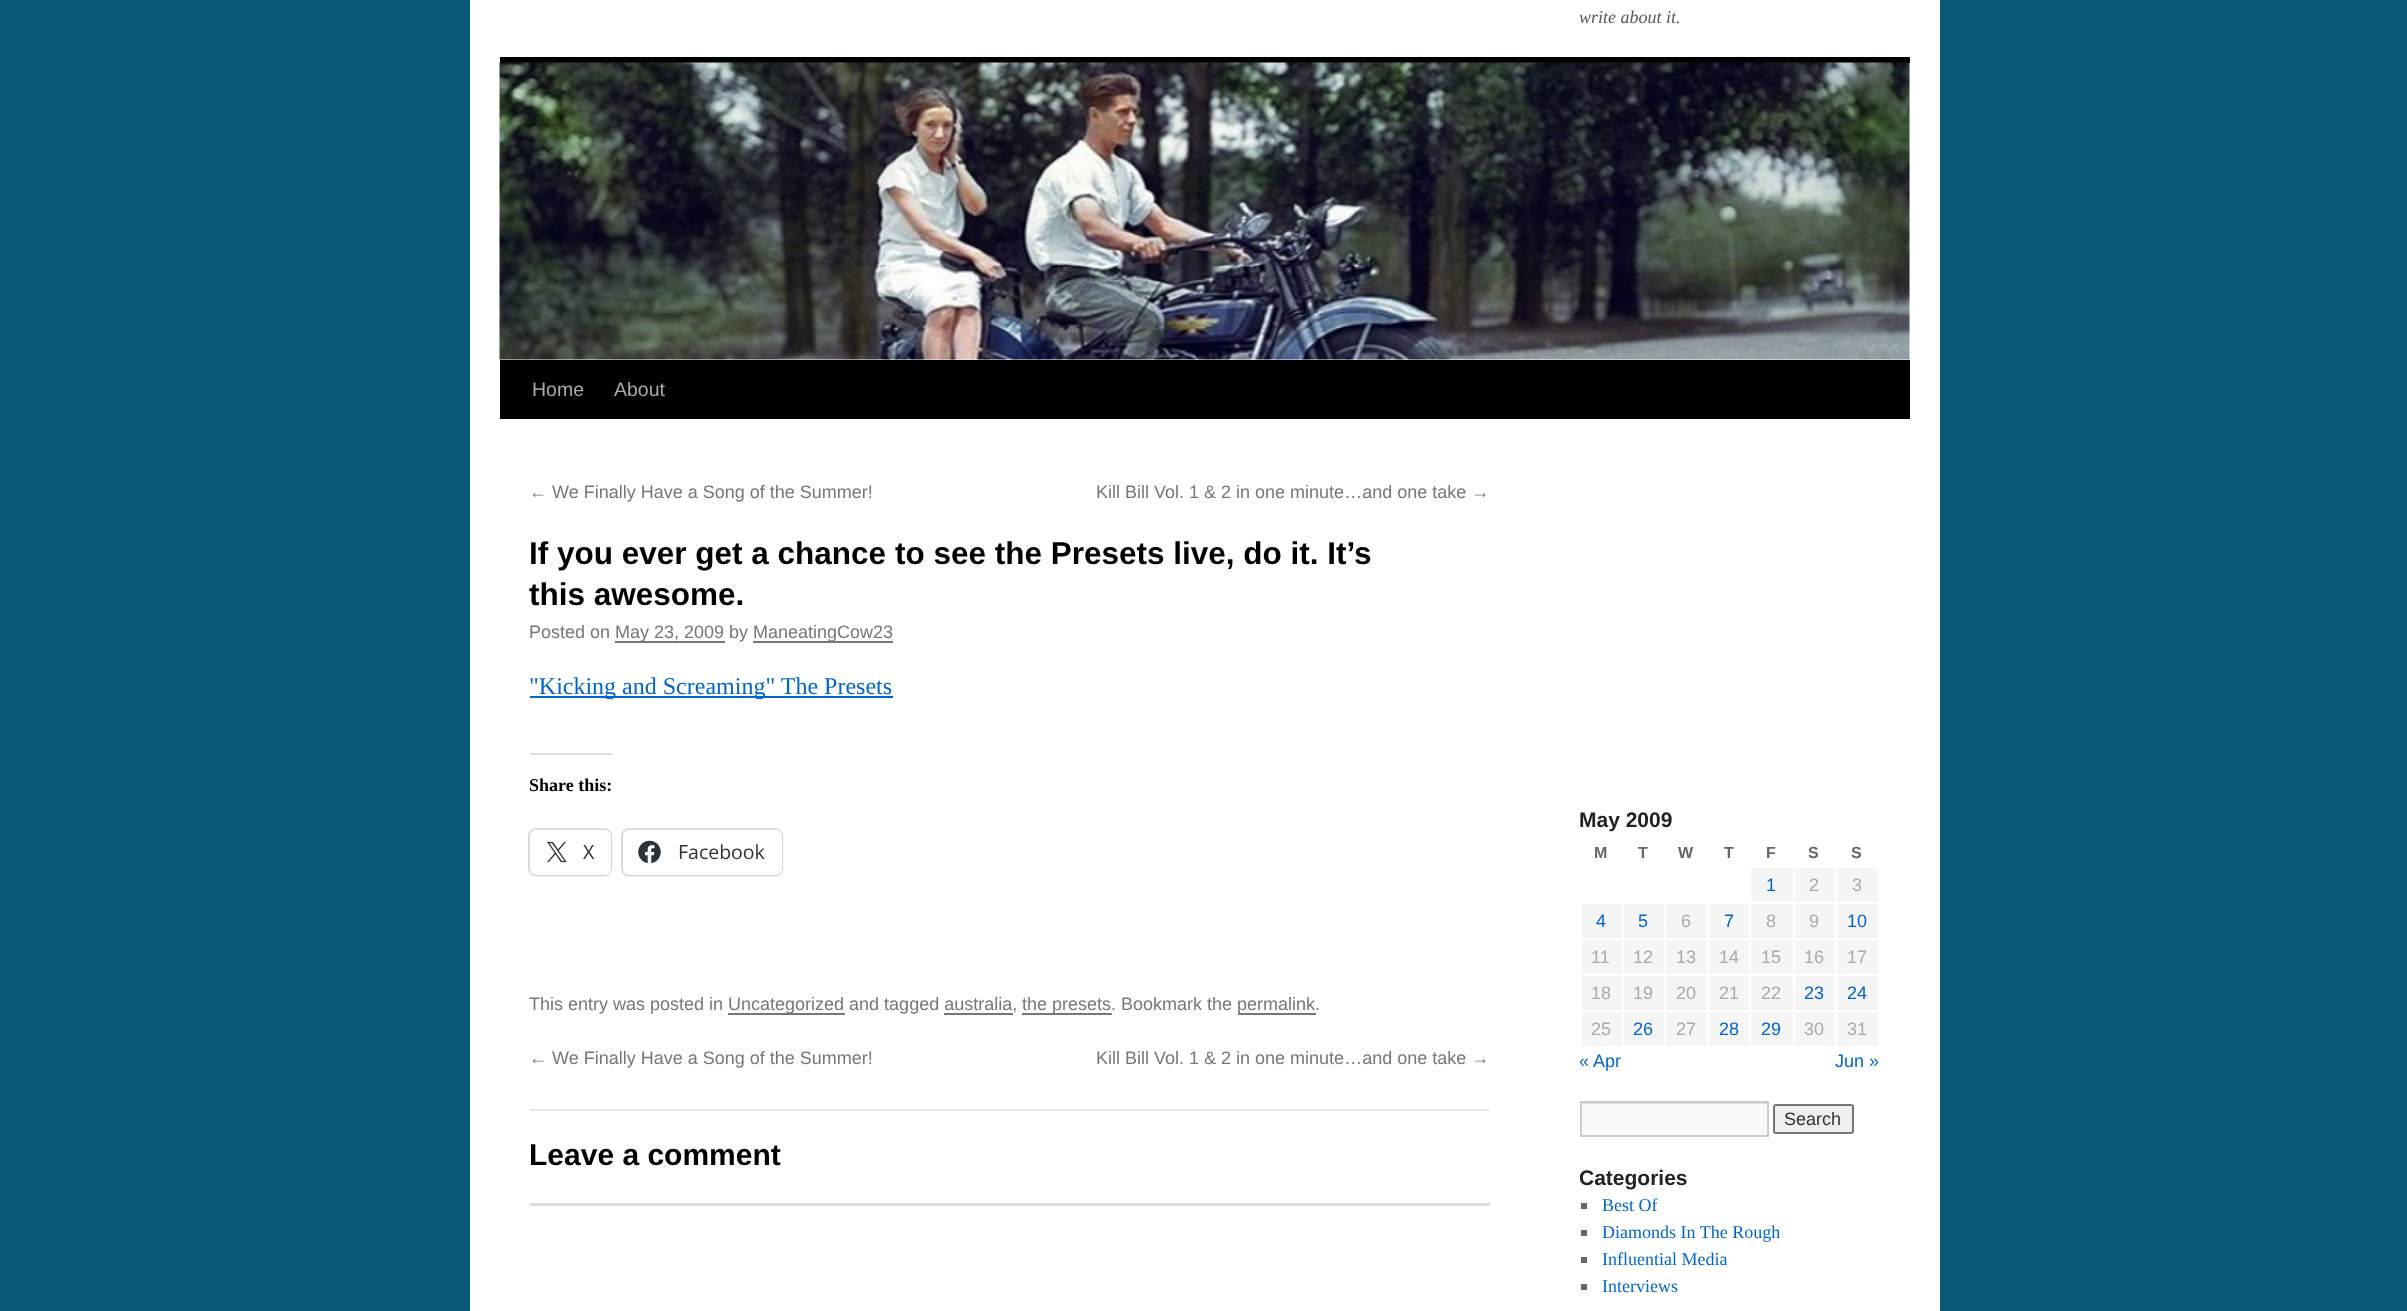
<svg xmlns="http://www.w3.org/2000/svg" width="2407" height="1311">
<defs>
<clipPath id="clip1"><rect x="1581" y="1103" width="186" height="33"/></clipPath>
<clipPath id="clip2"><rect x="1580" y="1101" width="330" height="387"/></clipPath>
</defs>
<rect width="100%" height="100%" fill="#095875"/>
<rect x="470" width="1470" height="1311" fill="#fff"/>
<text x="1579" y="23" style="font-family:Liberation Serif;font-size:18px;font-style:italic;fill:#595959">write about it.</text>
<rect x="500" y="57" width="1410" height="6" fill="#000"/>
<rect x="500" y="360" width="1410" height="59" fill="#000"/>
<image x="499" y="62" width="1411" height="298" href="media/1.png"/>
<text x="532" y="396" style="font-family:Liberation Sans;font-size:19.5px;fill:#aaa">Home</text>
<text x="614" y="396" style="font-family:Liberation Sans;font-size:19.5px;fill:#aaa">About</text>
<text x="529" y="498" style="font-family:Liberation Sans;font-size:18px;fill:#777">← We Finally Have a Song of the Summer!</text>
<text x="1096" y="498" style="font-family:Liberation Sans;font-size:18px;fill:#777">Kill Bill Vol. 1 &amp; 2 in one minute…and one take →</text>
<text x="529" y="564" style="font-family:Liberation Sans;font-size:31.5px;font-weight:bold;fill:#000">If you ever get a chance to see the Presets live, do it. It’s</text>
<text x="529" y="605" style="font-family:Liberation Sans;font-size:31.5px;font-weight:bold;fill:#000">this awesome.</text>
<text x="529" y="638" style="font-family:Liberation Sans;font-size:18px;fill:#777">Posted on</text>
<rect x="615" y="641" width="110" height="2" fill="#777"/>
<text x="615" y="638" style="font-family:Liberation Sans;font-size:18px;fill:#777">May 23, 2009 by</text>
<rect x="753" y="641" width="140" height="2" fill="#777"/>
<text x="753" y="638" style="font-family:Liberation Sans;font-size:18px;fill:#777">ManeatingCow23</text>
<rect x="530" y="696" width="363" height="2" fill="#06c"/>
<text x="529" y="694" style="font-family:Liberation Serif;font-size:24px;fill:#06c">"Kicking and Screaming" The Presets</text>
<rect x="530" y="753" width="82" height="2" fill="#dcdcde"/>
<text x="529" y="791" style="font-family:Liberation Serif;font-size:18px;font-weight:bold;fill:#000">Share this:</text>
<rect x="529" y="829" width="82" height="46" rx="7" fill="none" stroke="#e0e0e0" stroke-width="2"/>
<rect x="530" y="831" width="81" height="45" rx="6" fill="#0000001f" filter="blur(1.5px)"/>
<rect x="530" y="830" width="81" height="45" rx="6" fill="#fff"/>
<image x="547" y="841" width="20" height="22" href="media/2.png"/>
<text x="583" y="859" style="font-family:Open Sans;font-size:19.5px;fill:#2c3338">X</text>
<rect x="622" y="829" width="160" height="46" rx="7" fill="none" stroke="#e0e0e0" stroke-width="2"/>
<rect x="623" y="831" width="159" height="45" rx="6" fill="#0000001f" filter="blur(1.5px)"/>
<rect x="623" y="830" width="159" height="45" rx="6" fill="#fff"/>
<image x="638" y="840" width="23" height="24" href="media/3.png"/>
<text x="678" y="859" style="font-family:Open Sans;font-size:19.5px;fill:#2c3338">Facebook</text>
<text x="529" y="1010" style="font-family:Liberation Sans;font-size:18px;fill:#777">This entry was posted in</text>
<rect x="728" y="1013" width="117" height="2" fill="#777"/>
<text x="728" y="1010" style="font-family:Liberation Sans;font-size:18px;fill:#777">Uncategorized and tagged australia,</text>
<rect x="1022" y="1013" width="90" height="2" fill="#777"/>
<text x="1022" y="1010" style="font-family:Liberation Sans;font-size:18px;fill:#777">the presets. Bookmark the</text>
<rect x="1238" y="1013" width="78" height="2" fill="#777"/>
<text x="1237" y="1010" style="font-family:Liberation Sans;font-size:18px;fill:#777">permalink.</text>
<rect x="944" y="1013" width="69" height="2" fill="#777"/>
<text x="529" y="1064" style="font-family:Liberation Sans;font-size:18px;fill:#777">← We Finally Have a Song of the Summer!</text>
<text x="1096" y="1064" style="font-family:Liberation Sans;font-size:18px;fill:#777">Kill Bill Vol. 1 &amp; 2 in one minute…and one take →</text>
<rect x="530" y="1109" width="960" height="2" fill="#e7e7e7"/>
<text x="529" y="1165" style="font-family:Liberation Sans;font-size:30px;font-weight:bold;fill:#000">Leave a comment</text>
<rect x="530" y="1203" width="960" height="3" fill="#dcdcde"/>
<text x="1579" y="827" style="font-family:Liberation Sans;font-size:21px;font-weight:bold;fill:#222">May 2009</text>
<text x="1594" y="858" style="font-family:Liberation Sans;font-size:16px;font-weight:bold;fill:#666">M</text>
<text x="1638" y="858" style="font-family:Liberation Sans;font-size:16px;font-weight:bold;fill:#666">T</text>
<text x="1678" y="858" style="font-family:Liberation Sans;font-size:16px;font-weight:bold;fill:#666">W</text>
<text x="1724" y="858" style="font-family:Liberation Sans;font-size:16px;font-weight:bold;fill:#666">T</text>
<text x="1766" y="858" style="font-family:Liberation Sans;font-size:16px;font-weight:bold;fill:#666">F</text>
<text x="1808" y="858" style="font-family:Liberation Sans;font-size:16px;font-weight:bold;fill:#666">S</text>
<text x="1851" y="858" style="font-family:Liberation Sans;font-size:16px;font-weight:bold;fill:#666">S</text>
<rect x="1751" y="868" width="42" height="34" fill="#f5f5f5"/>
<text x="1766" y="891" style="font-family:Liberation Sans;font-size:18px;fill:#06c">1</text>
<rect x="1795" y="868" width="40" height="34" fill="#f5f5f5"/>
<text x="1809" y="891" style="font-family:Liberation Sans;font-size:18px;fill:#aaa">2</text>
<rect x="1837" y="868" width="41" height="34" fill="#f5f5f5"/>
<text x="1852" y="891" style="font-family:Liberation Sans;font-size:18px;fill:#aaa">3</text>
<rect x="1582" y="904" width="40" height="34" fill="#f5f5f5"/>
<text x="1596" y="927" style="font-family:Liberation Sans;font-size:18px;fill:#06c">4</text>
<rect x="1624" y="904" width="40" height="34" fill="#f5f5f5"/>
<text x="1638" y="927" style="font-family:Liberation Sans;font-size:18px;fill:#06c">5</text>
<rect x="1666" y="904" width="41" height="34" fill="#f5f5f5"/>
<text x="1681" y="927" style="font-family:Liberation Sans;font-size:18px;fill:#aaa">6</text>
<rect x="1709" y="904" width="40" height="34" fill="#f5f5f5"/>
<text x="1724" y="927" style="font-family:Liberation Sans;font-size:18px;fill:#06c">7</text>
<rect x="1751" y="904" width="42" height="34" fill="#f5f5f5"/>
<text x="1766" y="927" style="font-family:Liberation Sans;font-size:18px;fill:#aaa">8</text>
<rect x="1795" y="904" width="40" height="34" fill="#f5f5f5"/>
<text x="1809" y="927" style="font-family:Liberation Sans;font-size:18px;fill:#aaa">9</text>
<rect x="1837" y="904" width="41" height="34" fill="#f5f5f5"/>
<text x="1847" y="927" style="font-family:Liberation Sans;font-size:18px;fill:#06c">10</text>
<rect x="1582" y="940" width="40" height="34" fill="#f5f5f5"/>
<text x="1591" y="963" style="font-family:Liberation Sans;font-size:18px;fill:#aaa">11</text>
<rect x="1624" y="940" width="40" height="34" fill="#f5f5f5"/>
<text x="1633" y="963" style="font-family:Liberation Sans;font-size:18px;fill:#aaa">12</text>
<rect x="1666" y="940" width="41" height="34" fill="#f5f5f5"/>
<text x="1676" y="963" style="font-family:Liberation Sans;font-size:18px;fill:#aaa">13</text>
<rect x="1709" y="940" width="40" height="34" fill="#f5f5f5"/>
<text x="1719" y="963" style="font-family:Liberation Sans;font-size:18px;fill:#aaa">14</text>
<rect x="1751" y="940" width="42" height="34" fill="#f5f5f5"/>
<text x="1761" y="963" style="font-family:Liberation Sans;font-size:18px;fill:#aaa">15</text>
<rect x="1795" y="940" width="40" height="34" fill="#f5f5f5"/>
<text x="1804" y="963" style="font-family:Liberation Sans;font-size:18px;fill:#aaa">16</text>
<rect x="1837" y="940" width="41" height="34" fill="#f5f5f5"/>
<text x="1847" y="963" style="font-family:Liberation Sans;font-size:18px;fill:#aaa">17</text>
<rect x="1582" y="976" width="40" height="34" fill="#f5f5f5"/>
<text x="1591" y="999" style="font-family:Liberation Sans;font-size:18px;fill:#aaa">18</text>
<rect x="1624" y="976" width="40" height="34" fill="#f5f5f5"/>
<text x="1633" y="999" style="font-family:Liberation Sans;font-size:18px;fill:#aaa">19</text>
<rect x="1666" y="976" width="41" height="34" fill="#f5f5f5"/>
<text x="1676" y="999" style="font-family:Liberation Sans;font-size:18px;fill:#aaa">20</text>
<rect x="1709" y="976" width="40" height="34" fill="#f5f5f5"/>
<text x="1719" y="999" style="font-family:Liberation Sans;font-size:18px;fill:#aaa">21</text>
<rect x="1751" y="976" width="42" height="34" fill="#f5f5f5"/>
<text x="1761" y="999" style="font-family:Liberation Sans;font-size:18px;fill:#aaa">22</text>
<rect x="1795" y="976" width="40" height="34" fill="#f5f5f5"/>
<text x="1804" y="999" style="font-family:Liberation Sans;font-size:18px;fill:#06c">23</text>
<rect x="1837" y="976" width="41" height="34" fill="#f5f5f5"/>
<text x="1847" y="999" style="font-family:Liberation Sans;font-size:18px;fill:#06c">24</text>
<rect x="1582" y="1012" width="40" height="34" fill="#f5f5f5"/>
<text x="1591" y="1035" style="font-family:Liberation Sans;font-size:18px;fill:#aaa">25</text>
<rect x="1624" y="1012" width="40" height="34" fill="#f5f5f5"/>
<text x="1633" y="1035" style="font-family:Liberation Sans;font-size:18px;fill:#06c">26</text>
<rect x="1666" y="1012" width="41" height="34" fill="#f5f5f5"/>
<text x="1676" y="1035" style="font-family:Liberation Sans;font-size:18px;fill:#aaa">27</text>
<rect x="1709" y="1012" width="40" height="34" fill="#f5f5f5"/>
<text x="1719" y="1035" style="font-family:Liberation Sans;font-size:18px;fill:#06c">28</text>
<rect x="1751" y="1012" width="42" height="34" fill="#f5f5f5"/>
<text x="1761" y="1035" style="font-family:Liberation Sans;font-size:18px;fill:#06c">29</text>
<rect x="1795" y="1012" width="40" height="34" fill="#f5f5f5"/>
<text x="1804" y="1035" style="font-family:Liberation Sans;font-size:18px;fill:#aaa">30</text>
<rect x="1837" y="1012" width="41" height="34" fill="#f5f5f5"/>
<text x="1847" y="1035" style="font-family:Liberation Sans;font-size:18px;fill:#aaa">31</text>
<text x="1579" y="1067" style="font-family:Liberation Sans;font-size:18px;fill:#06c">« Apr</text>
<text x="1835" y="1067" style="font-family:Liberation Sans;font-size:18px;fill:#06c">Jun »</text>
<rect x="1582" y="1104" width="185" height="31" fill="#f9f9f9"/>
<g clip-path="url(#clip1)">
<path d="M1432 954h484v330h-484zm150 150h186v33h-186z" fill="#e0e0e0" fill-rule="evenodd"/>
</g>
<rect x="1581" y="1102" width="187" height="34" fill="none" stroke="#ccc" stroke-width="2"/>
<rect x="1774" y="1105" width="79" height="28" rx="2" fill="#efefef" stroke="#767676" stroke-width="2"/>
<text x="1784" y="1125" style="font-family:Liberation Sans;font-size:18px;fill:#333">Search</text>
<g clip-path="url(#clip2)">
<text x="1579" y="1185" style="font-family:Liberation Sans;font-size:21px;font-weight:bold;fill:#222">Categories</text>
</g>
<rect x="1581" y="1203" width="6" height="6" fill="#666"/>
<text x="1602" y="1211" style="font-family:Liberation Serif;font-size:18px;fill:#06c">Best Of</text>
<rect x="1581" y="1230" width="6" height="6" fill="#666"/>
<text x="1602" y="1238" style="font-family:Liberation Serif;font-size:18px;fill:#06c">Diamonds In The Rough</text>
<rect x="1581" y="1257" width="6" height="6" fill="#666"/>
<text x="1602" y="1265" style="font-family:Liberation Serif;font-size:18px;fill:#06c">Influential Media</text>
<rect x="1581" y="1284" width="6" height="6" fill="#666"/>
<text x="1602" y="1292" style="font-family:Liberation Serif;font-size:18px;fill:#06c">Interviews</text>
</svg>
